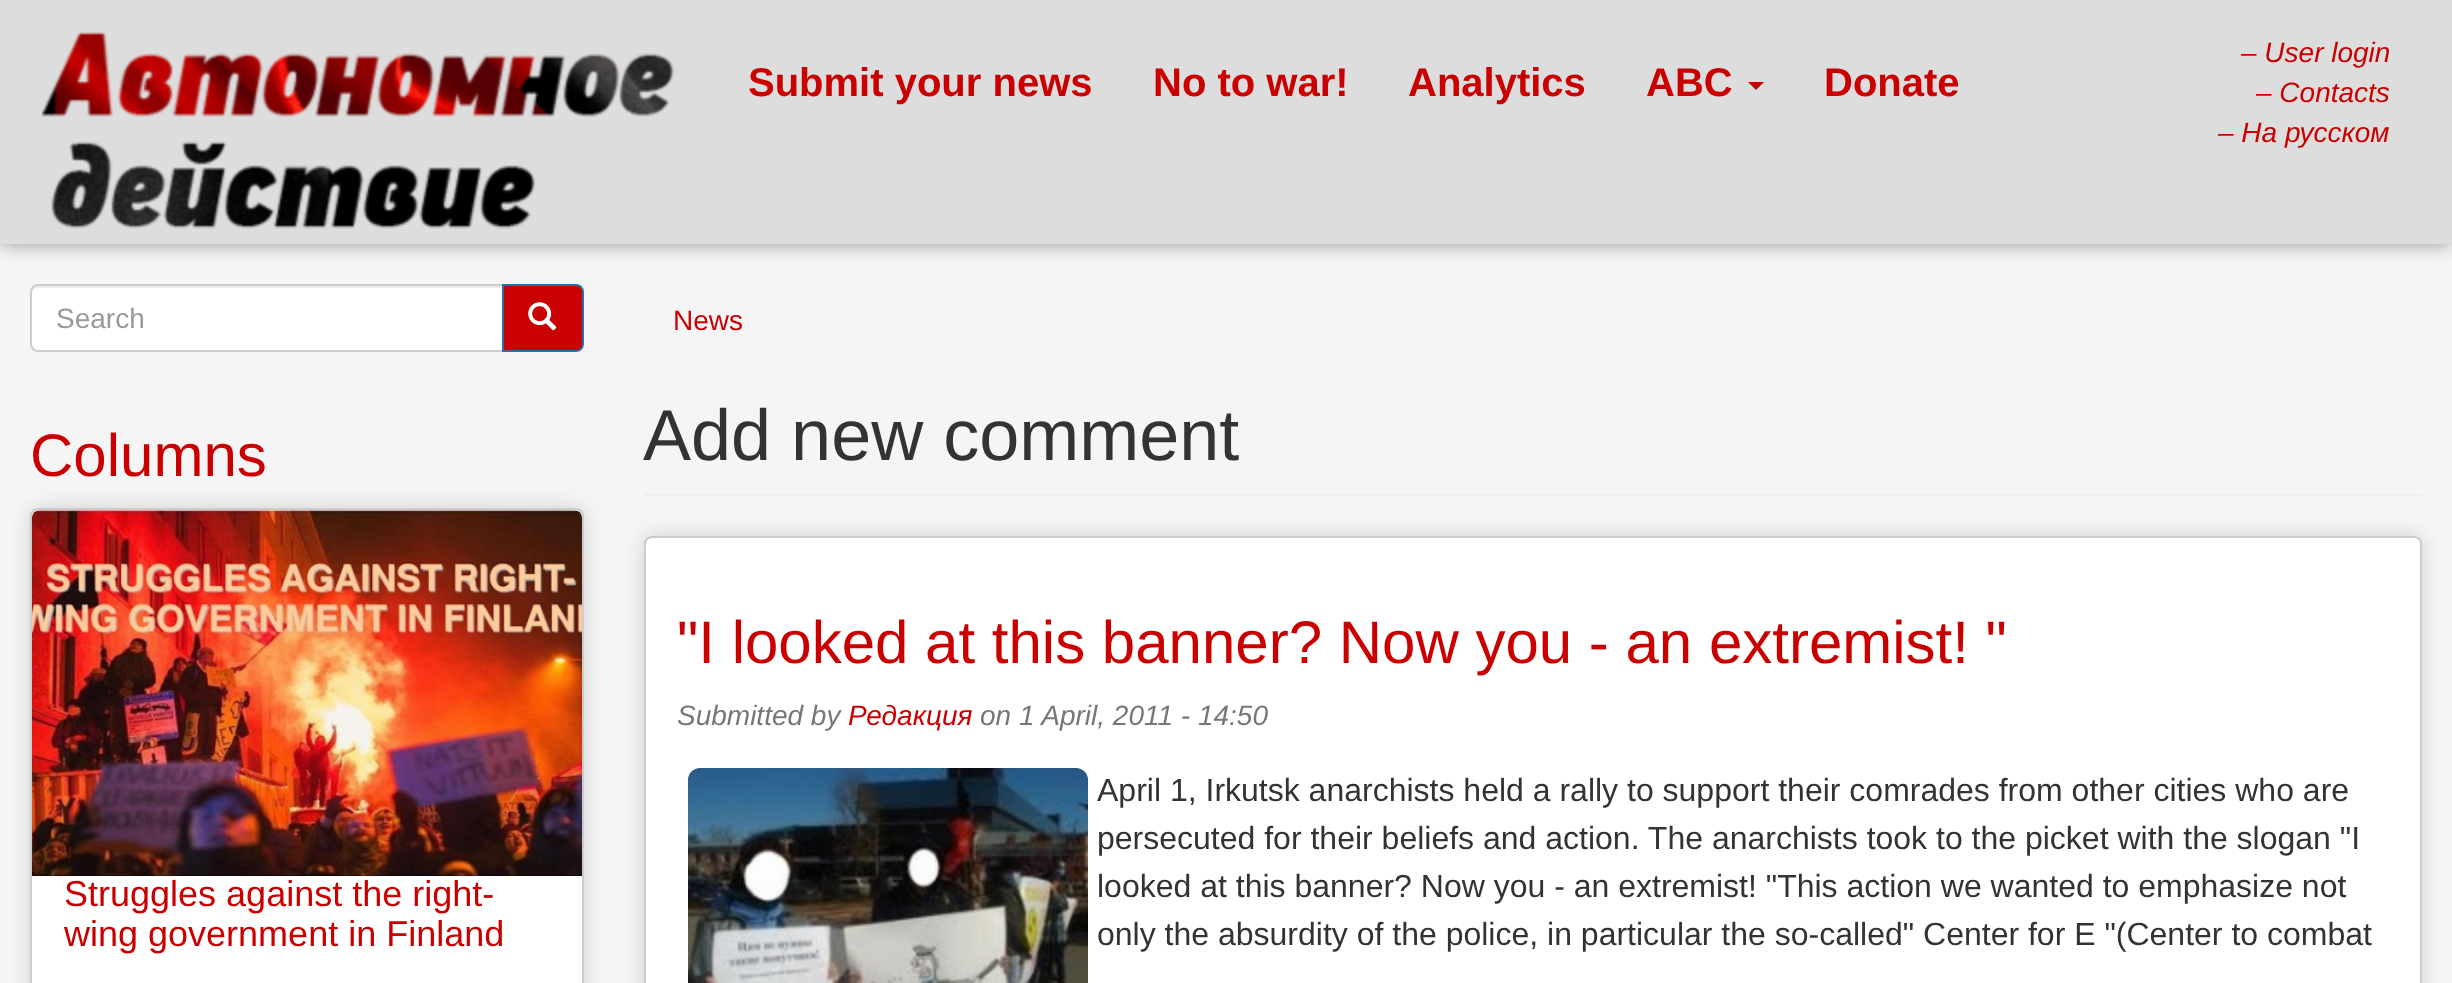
<svg xmlns="http://www.w3.org/2000/svg" width="2452" height="983">
<rect width="100%" height="100%" fill="#f5f5f5"/>
<rect width="2452" height="244" fill="#00000066" filter="blur(10px)"/>
<rect width="2452" height="244" fill="#ddd"/>
<image x="42" y="32" width="633" height="197" href="media/1.png"/>
<text x="748" y="96" style="font-family:Liberation Sans;font-size:40px;font-weight:bold;fill:#ca0000">Submit your news</text>
<text x="1153" y="96" style="font-family:Liberation Sans;font-size:40px;font-weight:bold;fill:#ca0000">No to war!</text>
<text x="1408" y="96" style="font-family:Liberation Sans;font-size:40px;font-weight:bold;fill:#ca0000">Analytics</text>
<text x="1646" y="96" style="font-family:Liberation Sans;font-size:40px;font-weight:bold;fill:#ca0000">ABC</text>
<path d="M1748 82h16l-8 8z" fill="#ca0000"/>
<text x="1824" y="96" style="font-family:Liberation Sans;font-size:40px;font-weight:bold;fill:#ca0000">Donate</text>
<text x="2241" y="62" style="font-family:Liberation Sans;font-size:28px;font-style:italic;fill:#ca0000">– User login</text>
<text x="2256" y="102" style="font-family:Liberation Sans;font-size:28px;font-style:italic;fill:#ca0000">– Contacts</text>
<text x="2218" y="142" style="font-family:Liberation Sans;font-size:28px;font-style:italic;fill:#ca0000">– На русском</text>
<path d="M38 284h466v68h-466c-4.5 0-8-3.5-8-8v-52c0-4.5 3.5-8 8-8z" fill="#fff"/>
<path d="M38 288h464v-2h-464c-5 0-6 4-6 8c0-3 3-6 6-6z" fill="#ececec"/>
<path d="M38 285h465v66h-465c-4 0-7-3-7-7v-52c0-4 3-7 7-7z" fill="none" stroke="#ccc" stroke-width="2"/>
<text x="56" y="328" style="font-family:Liberation Sans;font-size:28px;fill:#999">Search</text>
<path d="M503 285h73c4 0 7 3 7 7v52c0 4-3 7-7 7h-73z" fill="#ca0000" stroke="#2e6da4" stroke-width="2"/>
<image x="528" y="302" width="29" height="29" href="media/2.png"/>
<text x="30" y="476" style="font-family:Liberation Sans;font-size:60px;fill:#ca0000">Columns</text>
<rect x="30" y="508" width="554" height="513" rx="8" fill="#00000026" filter="blur(10px)"/>
<rect x="31" y="509" width="552" height="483" rx="7" fill="#fff" stroke="#ccc" stroke-width="2"/>
<image x="32" y="510" width="550" height="366" href="media/3.png"/>
<text x="64" y="906" style="font-family:Liberation Sans;font-size:36px;fill:#ca0000">Struggles against the right-</text>
<text x="64" y="946" style="font-family:Liberation Sans;font-size:36px;fill:#ca0000">wing government in Finland</text>
<text x="673" y="330" style="font-family:Liberation Sans;font-size:28px;fill:#ca0000">News</text>
<rect x="644" y="494" width="1778" height="2" fill="#eee"/>
<text x="643" y="460" style="font-family:Liberation Sans;font-size:72px;fill:#333">Add new comment</text>
<rect x="644" y="536" width="1778" height="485" rx="8" fill="#00000026" filter="blur(10px)"/>
<rect x="645" y="537" width="1776" height="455" rx="7" fill="#fff" stroke="#ccc" stroke-width="2"/>
<text x="677" y="663" style="font-family:Liberation Sans;font-size:60px;fill:#ca0000">"I looked at this banner? Now you - an extremist! "</text>
<text x="677" y="725" style="font-family:Liberation Sans;font-size:28px;font-style:italic;fill:#777">Submitted by</text>
<text x="848" y="725" style="font-family:Liberation Sans;font-size:28px;font-style:italic;fill:#ca0000">Редакция</text>
<text x="980" y="725" style="font-family:Liberation Sans;font-size:28px;font-style:italic;fill:#777">on 1 April, 2011 - 14:50</text>
<image x="688" y="768" width="400" height="215" href="media/4.png"/>
<text x="1097" y="801" style="font-family:Liberation Sans;font-size:32px;fill:#333">April 1, Irkutsk anarchists held a rally to support their comrades from other cities who are</text>
<text x="1097" y="849" style="font-family:Liberation Sans;font-size:32px;fill:#333">persecuted for their beliefs and action. The anarchists took to the picket with the slogan "I</text>
<text x="1097" y="897" style="font-family:Liberation Sans;font-size:32px;fill:#333">looked at this banner? Now you - an extremist! "This action we wanted to emphasize not</text>
<text x="1097" y="945" style="font-family:Liberation Sans;font-size:32px;fill:#333">only the absurdity of the police, in particular the so-called" Center for E "(Center to combat</text>
</svg>
